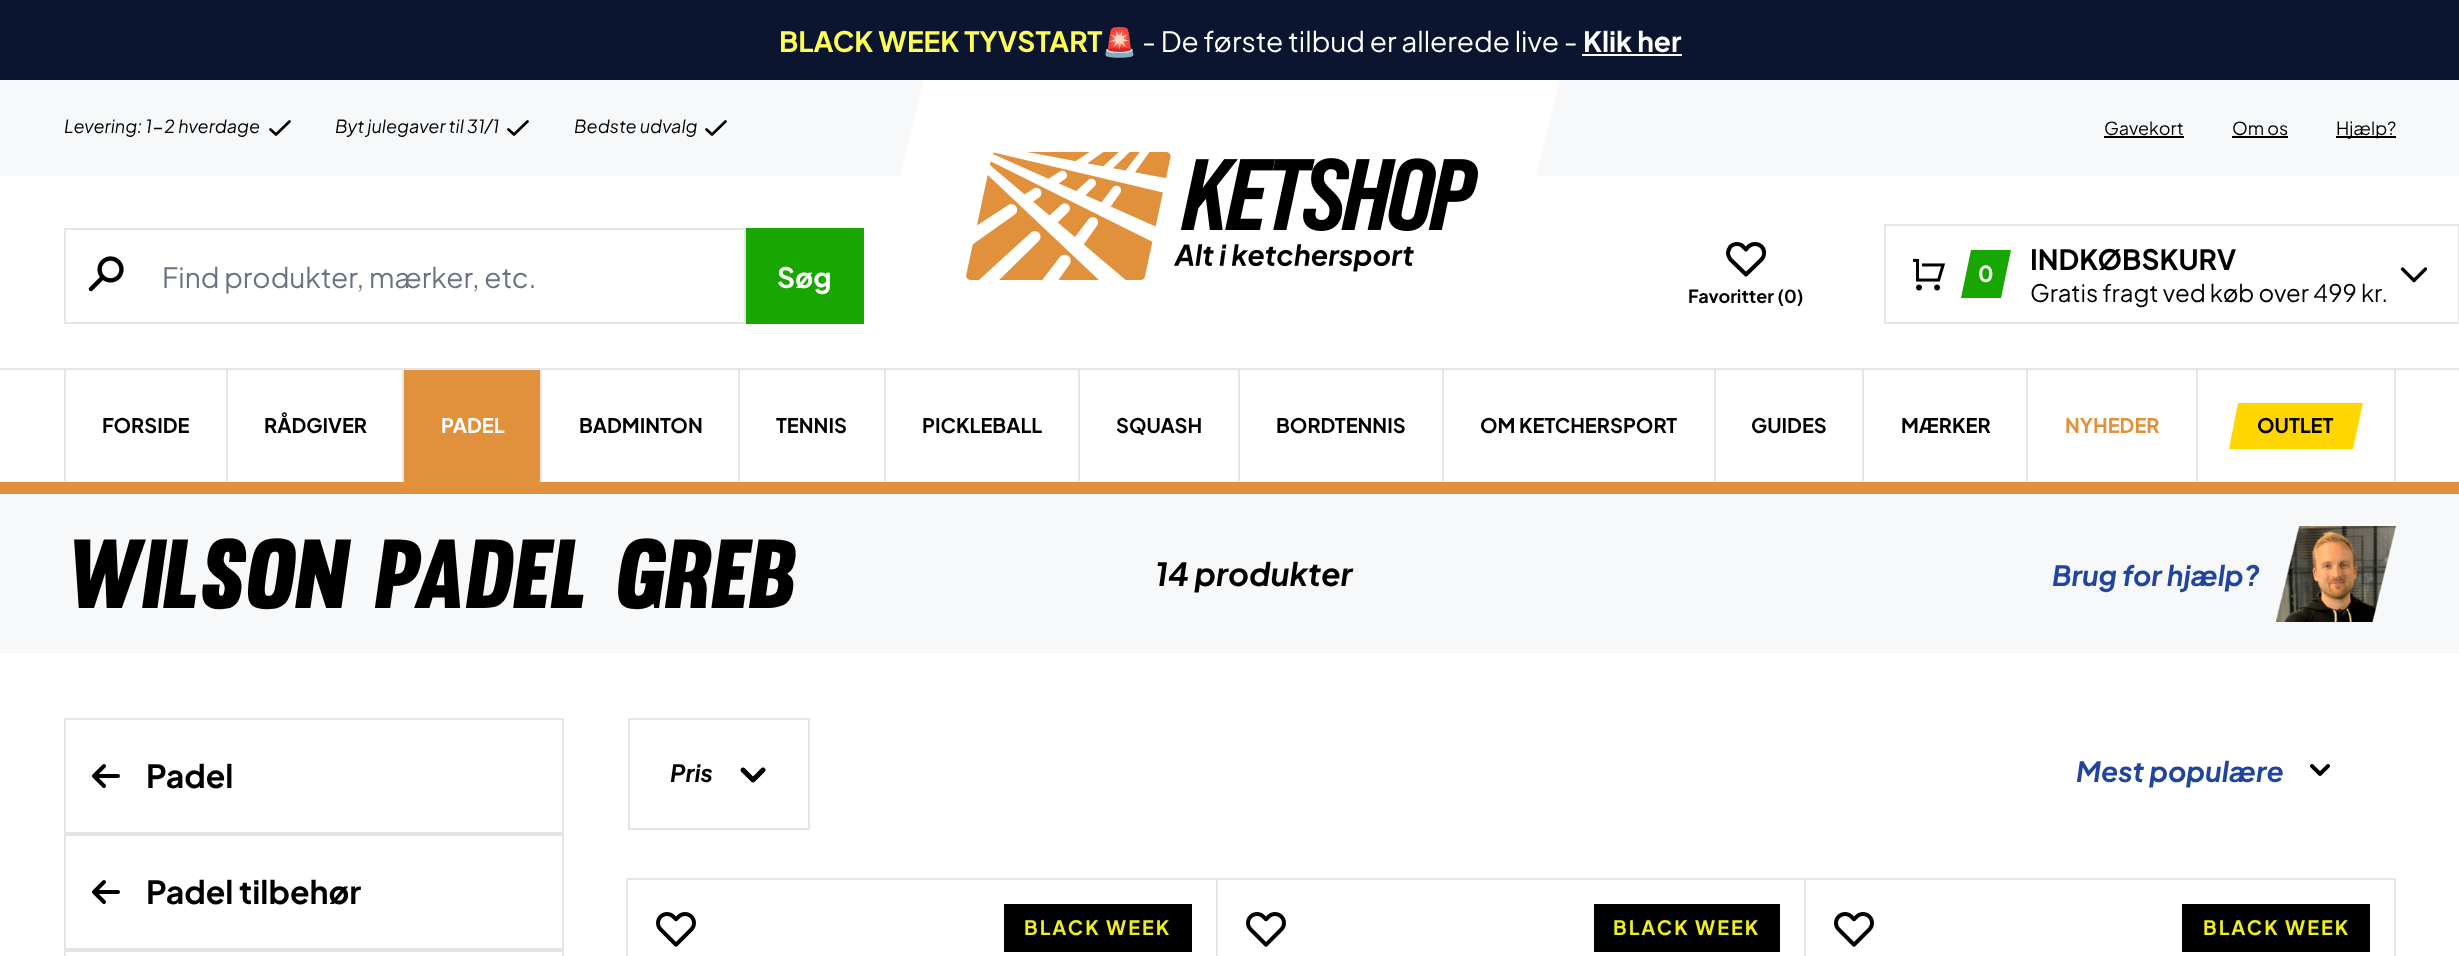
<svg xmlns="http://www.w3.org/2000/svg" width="2459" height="956">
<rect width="100%" height="100%" fill="#fff"/>
<rect width="2459" height="80" fill="#0b1530"/>
<text x="779" y="52" style="font-family:Plus Jakarta Sans;font-size:28px;font-weight:bold;fill:#feff54">BLACK WEEK TYVSTART</text>
<text x="1102" y="52" style="font-family:Noto Color Emoji;font-size:28px;font-weight:bold;fill:#feff54">🚨</text>
<text x="1142" y="52" style="font-family:Plus Jakarta Sans;font-size:28px;fill:#fff">- De første tilbud er allerede live -</text>
<text x="1583" y="52" style="font-family:Plus Jakarta Sans;font-size:28px;font-weight:bold;fill:#fff">Klik her</text>
<rect x="1582" y="54" width="100" height="2" fill="#fff"/>
<rect y="80" width="2459" height="96" fill="#f6f8fa"/>
<text x="64" y="133" style="font-family:Plus Jakarta Sans;font-size:18px;font-style:italic;fill:#000">Levering: 1-2 hverdage</text>
<path d="M270.5 129.5l5.5 5l13.5-13" fill="none" stroke="#000" stroke-width="2.7" stroke-linecap="round" stroke-linejoin="round"/>
<text x="335" y="133" style="font-family:Plus Jakarta Sans;font-size:18px;font-style:italic;fill:#000">Byt julegaver til 31/1</text>
<path d="M508.5 129.5l5.5 5l13.5-13" fill="none" stroke="#000" stroke-width="2.7" stroke-linecap="round" stroke-linejoin="round"/>
<text x="574" y="133" style="font-family:Plus Jakarta Sans;font-size:18px;font-style:italic;fill:#000">Bedste udvalg</text>
<path d="M706.5 129.5l5.5 5l13.5-13" fill="none" stroke="#000" stroke-width="2.7" stroke-linecap="round" stroke-linejoin="round"/>
<rect x="900" y="80" width="660" height="96" fill="#fff"/>
<path d="M868 80h56l-24 96h-56z" fill="#f6f8fa"/>
<path d="M1560 80h56l-24 96h-56z" fill="#f6f8fa"/>
<image x="966" y="152" width="512" height="128" href="media/1.png"/>
<text x="2104" y="135" style="font-family:Plus Jakarta Sans;font-size:18px;fill:#000">Gavekort</text>
<rect x="2104" y="136" width="80" height="2" fill="#000"/>
<text x="2232" y="135" style="font-family:Plus Jakarta Sans;font-size:18px;fill:#000">Om os</text>
<rect x="2232" y="136" width="56" height="2" fill="#000"/>
<rect x="2336" y="136" width="60" height="2" fill="#000"/>
<text x="2336" y="135" style="font-family:Plus Jakarta Sans;font-size:18px;fill:#000">Hjælp?</text>
<rect x="65" y="229" width="680" height="94" fill="none" stroke="#e5e5e5" stroke-width="2"/>
<image x="88" y="256" width="36" height="36" href="media/2.png"/>
<text x="162" y="288" style="font-family:Plus Jakarta Sans;font-size:28px;fill:#6b7280">Find produkter, mærker, etc.</text>
<rect x="746" y="228" width="118" height="96" fill="#17a700"/>
<text x="777" y="288" style="font-family:Plus Jakarta Sans;font-size:28px;font-weight:bold;fill:#fff">Søg</text>
<path d="M1730.5 246.5c-1.5 2-2.5 4-2.5 6.5c0 2.5 1 4.5 2.5 6.5l15.5 15l15.5-15c3.5-3.5 3.5-9.5 0-13c-3.5-3.5-9.5-3.5-13 0l-2.5 3l-4-4c-3.5-2.5-8.5-2-11.5 1z" fill="none" stroke="#000" stroke-width="4" stroke-linecap="round" stroke-linejoin="round"/>
<text x="1688" y="303" style="font-family:Plus Jakarta Sans;font-size:18px;font-weight:bold;fill:#000">Favoritter (0)</text>
<rect x="1885" y="225" width="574" height="98" fill="none" stroke="#e5e5e5" stroke-width="2"/>
<image x="1913" y="258" width="32" height="33" href="media/3.png"/>
<path d="M1971 250h40l-10 48h-40z" fill="#17a700"/>
<text x="1978" y="282" style="font-family:Plus Jakarta Sans;font-size:22px;font-weight:bold;fill:#fff">0</text>
<text x="2030" y="270" style="font-family:Plus Jakarta Sans;font-size:28px;font-weight:bold;fill:#000">INDKØBSKURV</text>
<text x="2030" y="302" style="font-family:Plus Jakarta Sans;font-size:24px;fill:#000">Gratis fragt ved køb over 499 kr.</text>
<path d="M2425.5 269l-11.5 11.5l-11.5-11.5" fill="none" stroke="#000" stroke-width="3.3" stroke-linecap="round" stroke-linejoin="round"/>
<rect y="368" width="2459" height="2" fill="#e5e5e5"/>
<rect x="64" y="370" width="2" height="112" fill="#e5e5e5"/>
<text x="102" y="433" style="font-family:Plus Jakarta Sans;font-size:20px;font-weight:bold;fill:#000">FORSIDE</text>
<rect x="226" y="370" width="2" height="112" fill="#e5e5e5"/>
<text x="264" y="433" style="font-family:Plus Jakarta Sans;font-size:20px;font-weight:bold;fill:#000">RÅDGIVER</text>
<rect x="402" y="370" width="2" height="112" fill="#e5e5e5"/>
<rect x="404" y="370" width="136" height="112" fill="#e1903c"/>
<text x="441" y="433" style="font-family:Plus Jakarta Sans;font-size:20px;font-weight:bold;fill:#fff">PADEL</text>
<rect x="540" y="370" width="2" height="112" fill="#e5e5e5"/>
<text x="579" y="433" style="font-family:Plus Jakarta Sans;font-size:20px;font-weight:bold;fill:#000">BADMINTON</text>
<rect x="738" y="370" width="2" height="112" fill="#e5e5e5"/>
<text x="776" y="433" style="font-family:Plus Jakarta Sans;font-size:20px;font-weight:bold;fill:#000">TENNIS</text>
<rect x="884" y="370" width="2" height="112" fill="#e5e5e5"/>
<text x="922" y="433" style="font-family:Plus Jakarta Sans;font-size:20px;font-weight:bold;fill:#000">PICKLEBALL</text>
<rect x="1078" y="370" width="2" height="112" fill="#e5e5e5"/>
<text x="1116" y="433" style="font-family:Plus Jakarta Sans;font-size:20px;font-weight:bold;fill:#000">SQUASH</text>
<rect x="1238" y="370" width="2" height="112" fill="#e5e5e5"/>
<text x="1276" y="433" style="font-family:Plus Jakarta Sans;font-size:20px;font-weight:bold;fill:#000">BORDTENNIS</text>
<rect x="1442" y="370" width="2" height="112" fill="#e5e5e5"/>
<text x="1480" y="433" style="font-family:Plus Jakarta Sans;font-size:20px;font-weight:bold;fill:#000">OM KETCHERSPORT</text>
<rect x="1714" y="370" width="2" height="112" fill="#e5e5e5"/>
<text x="1751" y="433" style="font-family:Plus Jakarta Sans;font-size:20px;font-weight:bold;fill:#000">GUIDES</text>
<rect x="1862" y="370" width="2" height="112" fill="#e5e5e5"/>
<text x="1901" y="433" style="font-family:Plus Jakarta Sans;font-size:20px;font-weight:bold;fill:#000">MÆRKER</text>
<rect x="2026" y="370" width="2" height="112" fill="#e5e5e5"/>
<text x="2065" y="433" style="font-family:Plus Jakarta Sans;font-size:20px;font-weight:bold;fill:#e1903c">NYHEDER</text>
<rect x="2394" y="370" width="2" height="112" fill="#e5e5e5"/>
<rect x="2196" y="370" width="2" height="112" fill="#e5e5e5"/>
<path d="M2238 403h125l-10 46h-124z" fill="#ffd600"/>
<text x="2257" y="433" style="font-family:Plus Jakarta Sans;font-size:20px;font-weight:bold;fill:#000">OUTLET</text>
<rect y="482" width="2459" height="12" fill="#e1903c"/>
<rect y="494" width="2459" height="160" fill="#f6f8fa"/>
<text x="64" y="608" style="font-family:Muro;font-size:96px;font-style:italic;fill:#000">Wilson Padel Greb</text>
<text x="1155" y="586" style="font-family:Plus Jakarta Sans;font-size:32px;font-weight:bold;font-style:italic;fill:#000">14 produkter</text>
<text x="2052" y="586" style="font-family:Plus Jakarta Sans;font-size:28px;font-weight:bold;font-style:italic;fill:#21459f">Brug for hjælp?</text>
<image x="2276" y="526" width="120" height="96" href="media/4.png"/>
<rect x="65" y="719" width="498" height="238" fill="none" stroke="#e5e5e5" stroke-width="2"/>
<rect x="66" y="832" width="496" height="4" fill="#e5e5e5"/>
<path d="M104 786l-10-10m0 0l10-10m-10 10h24" fill="none" stroke="#000" stroke-width="4" stroke-linecap="round" stroke-linejoin="round"/>
<text x="146" y="788" style="font-family:Plus Jakarta Sans;font-size:32px;font-weight:bold;fill:#000">Padel</text>
<rect x="66" y="948" width="496" height="4" fill="#e5e5e5"/>
<path d="M104 902l-10-10m0 0l10-10m-10 10h24" fill="none" stroke="#000" stroke-width="4" stroke-linecap="round" stroke-linejoin="round"/>
<text x="146" y="904" style="font-family:Plus Jakarta Sans;font-size:32px;font-weight:bold;fill:#000">Padel tilbehør</text>
<rect x="629" y="719" width="180" height="110" fill="none" stroke="#e5e5e5" stroke-width="2"/>
<text x="670" y="782" style="font-family:Plus Jakarta Sans;font-size:24px;font-weight:bold;font-style:italic;fill:#000">Pris</text>
<image x="740" y="767" width="26" height="16" href="media/5.png"/>
<text x="2076" y="782" style="font-family:Plus Jakarta Sans;font-size:28px;font-weight:bold;font-style:italic;fill:#21459f">Mest populære</text>
<image x="2310" y="764" width="20" height="12" href="media/6.png"/>
<rect x="627" y="879" width="590" height="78" fill="none" stroke="#e5e5e5" stroke-width="2"/>
<image x="656" y="912" width="40" height="35" href="media/7.png"/>
<rect x="1004" y="904" width="188" height="48" fill="#000"/>
<text x="1024" y="935" style="font-family:Plus Jakarta Sans;font-size:19.75px;font-weight:bold;letter-spacing:2px;fill:#ee2">BLACK WEEK</text>
<rect x="1217" y="879" width="588" height="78" fill="none" stroke="#e5e5e5" stroke-width="2"/>
<image x="1246" y="912" width="40" height="35" href="media/7.png"/>
<rect x="1594" y="904" width="186" height="48" fill="#000"/>
<text x="1613" y="935" style="font-family:Plus Jakarta Sans;font-size:19.75px;font-weight:bold;letter-spacing:2px;fill:#ee2">BLACK WEEK</text>
<rect x="1805" y="879" width="590" height="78" fill="none" stroke="#e5e5e5" stroke-width="2"/>
<image x="1834" y="912" width="40" height="35" href="media/7.png"/>
<rect x="2182" y="904" width="188" height="48" fill="#000"/>
<text x="2203" y="935" style="font-family:Plus Jakarta Sans;font-size:19.75px;font-weight:bold;letter-spacing:2px;fill:#ee2">BLACK WEEK</text>
</svg>
